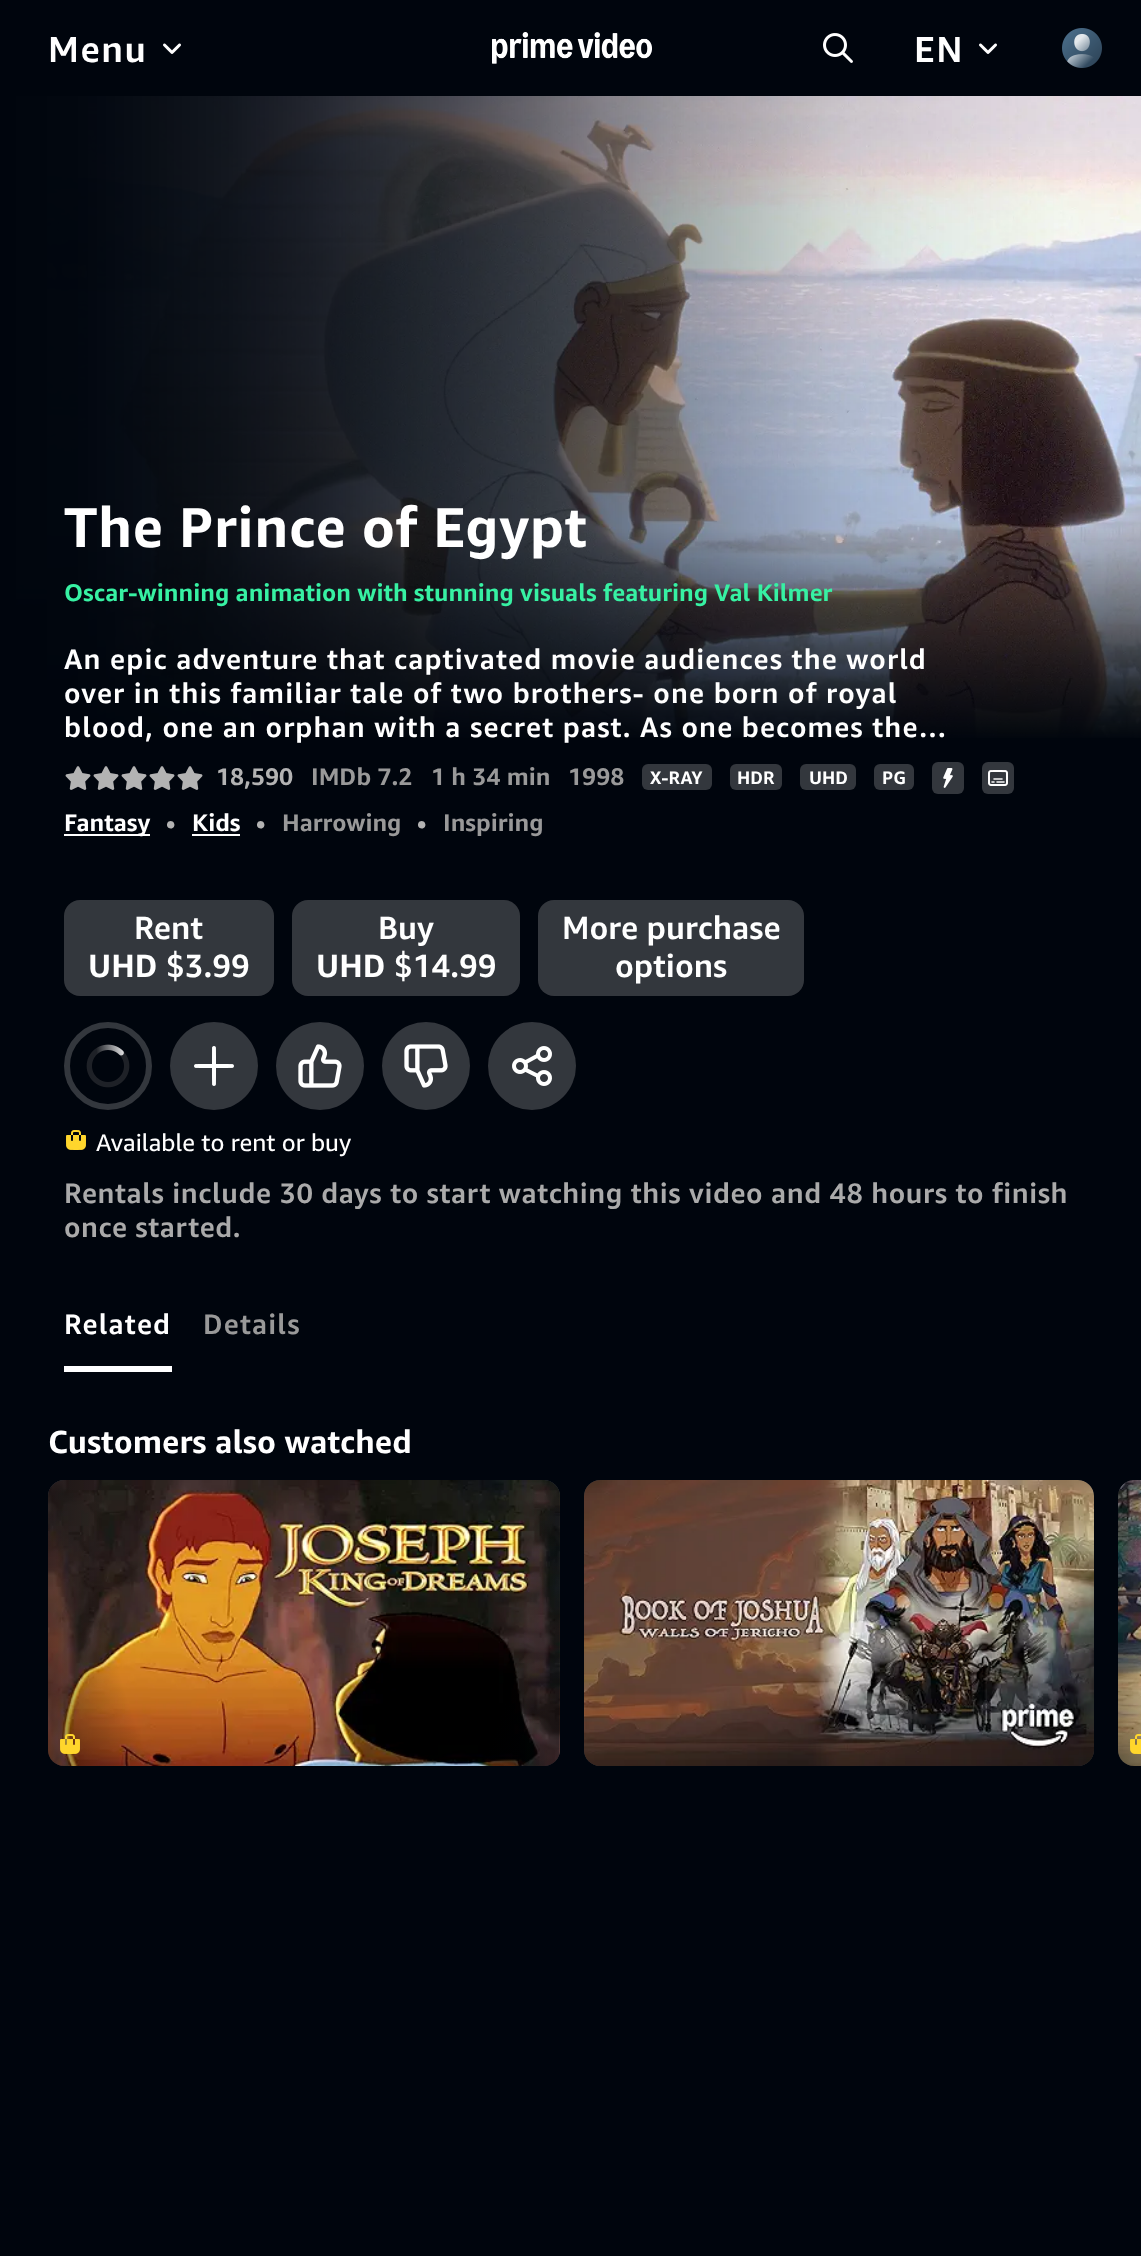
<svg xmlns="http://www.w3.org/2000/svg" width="1141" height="2256">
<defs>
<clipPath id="clip1"><path d="M64 1480h480c9 0 16 7 16 16v270h-512v-270c0-9 7-16 16-16z"/></clipPath>
<radialGradient id="g1" gradientUnits="userSpaceOnUse" cx="0" cy="0" r="1" gradientTransform="matrix(578 0 0 923 317 1540)"><stop offset="0.37" stop-color="#00050d" stop-opacity="0"/><stop offset="0.6" stop-color="#00050d" stop-opacity="0.7"/></radialGradient>
<radialGradient id="g2" gradientUnits="userSpaceOnUse" cx="0" cy="0" r="1" gradientTransform="matrix(578 0 0 923 1387 1540)"><stop offset="0.37" stop-color="#00050d" stop-opacity="0"/><stop offset="0.6" stop-color="#00050d" stop-opacity="0.7"/></radialGradient>
</defs>
<rect width="100%" height="100%" fill="#00050d"/>
<text x="48" y="62" style="font-family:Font;font-size:36px;font-weight:600;letter-spacing:1.5px;fill:#fff">Menu</text>
<image x="163" y="43" width="18" height="11" href="media/1.png"/>
<image x="492" y="32" width="160" height="32" href="media/2.png"/>
<image x="823" y="33" width="30" height="30" href="media/3.png"/>
<text x="914" y="62" style="font-family:Font;font-size:36px;font-weight:600;letter-spacing:1.5px;fill:#fff">EN</text>
<image x="979" y="43" width="18" height="11" href="media/1.png"/>
<image x="1062" y="28" width="40" height="40" href="media/4.png"/>
<image x="0" y="96" width="1141" height="642" href="media/5.png"/>
<text x="64" y="547" style="font-family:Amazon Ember;font-size:56px;font-weight:bold;letter-spacing:0.55px;fill:#fff">The Prince of Egypt</text>
<text x="64" y="601" style="font-family:Amazon Ember;font-size:24px;font-weight:bold;fill:#37f1a3">Oscar-winning animation with stunning visuals featuring Val Kilmer</text>
<text x="64" y="669" style="font-family:Font;font-size:28px;font-weight:600;letter-spacing:1.12px;fill:#fff">An epic adventure that captivated movie audiences the world</text>
<text x="64" y="703" style="font-family:Font;font-size:28px;font-weight:600;letter-spacing:1.12px;fill:#fff">over in this familiar tale of two brothers- one born of royal</text>
<text x="64" y="737" style="font-family:Font;font-size:28px;font-weight:600;letter-spacing:1.12px;fill:#fff">blood, one an orphan with a secret past. As one becomes the…</text>
<image x="65" y="766" width="26" height="24" href="media/6.png"/>
<image x="93" y="766" width="26" height="24" href="media/6.png"/>
<image x="121" y="766" width="26" height="24" href="media/6.png"/>
<image x="149" y="766" width="26" height="24" href="media/6.png"/>
<image x="177" y="766" width="26" height="24" href="media/6.png"/>
<text x="216" y="785" style="font-family:Amazon Ember;font-size:24px;font-weight:bold;fill:#b3b3b3">18,590</text>
<text x="311" y="785" style="font-family:Amazon Ember;font-size:24px;font-weight:bold;fill:#999">IMDb 7.2</text>
<text x="431" y="785" style="font-family:Amazon Ember;font-size:24px;font-weight:bold;fill:#999">1 h 34 min</text>
<text x="568" y="785" style="font-family:Amazon Ember;font-size:24px;font-weight:bold;fill:#999">1998</text>
<rect x="642" y="764" width="70" height="26" rx="6" fill="#33373d"/>
<text x="650" y="784" style="font-family:Amazon Ember;font-size:18px;font-weight:bold;fill:#fff">X-RAY</text>
<rect x="730" y="764" width="52" height="26" rx="6" fill="#33373d"/>
<text x="737" y="784" style="font-family:Amazon Ember;font-size:18px;font-weight:bold;fill:#fff">HDR</text>
<rect x="800" y="764" width="56" height="26" rx="6" fill="#33373d"/>
<text x="809" y="784" style="font-family:Amazon Ember;font-size:18px;font-weight:bold;fill:#fff">UHD</text>
<rect x="874" y="764" width="40" height="26" rx="6" fill="#33373d"/>
<text x="882" y="784" style="font-family:Amazon Ember;font-size:18px;font-weight:bold;fill:#fff">PG</text>
<rect x="932" y="762" width="32" height="32" rx="6" fill="#33373d"/>
<image x="943" y="768" width="10" height="20" href="media/7.png"/>
<rect x="982" y="762" width="32" height="32" rx="6" fill="#33373d"/>
<image x="988" y="770" width="20" height="16" href="media/8.png"/>
<rect x="64" y="834" width="86" height="2" fill="#fff"/>
<text x="64" y="831" style="font-family:Amazon Ember;font-size:24px;font-weight:bold;fill:#fff">Fantasy</text>
<text x="166" y="831" style="font-family:Amazon Ember;font-size:24px;font-weight:bold;fill:#b3b3b3">•</text>
<text x="192" y="831" style="font-family:Amazon Ember;font-size:24px;font-weight:bold;fill:#fff">Kids</text>
<rect x="192" y="834" width="48" height="2" fill="#fff"/>
<text x="256" y="831" style="font-family:Amazon Ember;font-size:24px;font-weight:bold;fill:#b3b3b3">•</text>
<text x="282" y="831" style="font-family:Amazon Ember;font-size:24px;font-weight:bold;fill:#999">Harrowing</text>
<text x="417" y="831" style="font-family:Amazon Ember;font-size:24px;font-weight:bold;fill:#b3b3b3">•</text>
<text x="443" y="831" style="font-family:Amazon Ember;font-size:24px;font-weight:bold;fill:#999">Inspiring</text>
<rect x="64" y="900" width="210" height="96" rx="16" fill="#33373d"/>
<text x="134" y="939" style="font-family:Font;font-size:32px;font-weight:600;fill:#fff">Rent</text>
<text x="88" y="977" style="font-family:Amazon Ember;font-size:32px;font-weight:bold;fill:#fff">UHD</text>
<text x="166" y="977" style="font-family:Font;font-size:32px;font-weight:600;fill:#fff">$3.99</text>
<rect x="292" y="900" width="228" height="96" rx="16" fill="#33373d"/>
<text x="378" y="939" style="font-family:Font;font-size:32px;font-weight:600;fill:#fff">Buy</text>
<text x="316" y="977" style="font-family:Amazon Ember;font-size:32px;font-weight:bold;fill:#fff">UHD</text>
<text x="394" y="977" style="font-family:Font;font-size:32px;font-weight:600;fill:#fff">$14.99</text>
<rect x="538" y="900" width="266" height="96" rx="16" fill="#33373d"/>
<text x="562" y="939" style="font-family:Font;font-size:32px;font-weight:600;fill:#fff">More purchase</text>
<text x="615" y="977" style="font-family:Font;font-size:32px;font-weight:600;fill:#fff">options</text>
<circle cx="108" cy="1066" r="41" fill="none" stroke="#33373d" stroke-width="6"/>
<image x="86" y="1044" width="44" height="44" href="media/9.png"/>
<circle cx="214" cy="1066" r="44" fill="#33373d"/>
<image x="194" y="1046" width="40" height="40" href="media/10.png"/>
<circle cx="320" cy="1066" r="44" fill="#33373d"/>
<image x="298" y="1044" width="44" height="44" href="media/11.png"/>
<circle cx="426" cy="1066" r="44" fill="#33373d"/>
<image x="404" y="1044" width="44" height="44" href="media/12.png"/>
<circle cx="532" cy="1066" r="44" fill="#33373d"/>
<image x="512" y="1046" width="40" height="40" href="media/13.png"/>
<image x="66" y="1130" width="20" height="20" href="media/14.png"/>
<text x="96" y="1151" style="font-family:Amazon Ember;font-size:24px;fill:#fff">Available to rent or buy</text>
<text x="64" y="1203" style="font-family:Font;font-size:28px;font-weight:600;letter-spacing:0.55px;fill:#aaa">Rentals include 30 days to start watching this video and 48 hours to finish</text>
<text x="64" y="1237" style="font-family:Font;font-size:28px;font-weight:600;letter-spacing:0.55px;fill:#aaa">once started.</text>
<text x="64" y="1334" style="font-family:Font;font-size:28px;font-weight:600;letter-spacing:1.12px;fill:#fff">Related</text>
<rect x="64" y="1366" width="108" height="6" fill="#fff"/>
<text x="203" y="1334" style="font-family:Font;font-size:28px;font-weight:600;letter-spacing:1.12px;fill:#999">Details</text>
<text x="48" y="1453" style="font-family:Amazon Ember;font-size:32px;font-weight:bold;fill:#fff">Customers also watched</text>
<rect x="48" y="1480" width="512" height="286" rx="16" fill="#33373d"/>
<image x="48" y="1480" width="512" height="286" href="media/15.png"/>
<g clip-path="url(#clip1)">
<path d="M64 1480h495v286h-511v-270c0-9 7-16 16-16z" fill="url(#g1)"/>
</g>
<image x="60" y="1734" width="20" height="20" href="media/16.png"/>
<rect x="584" y="1480" width="510" height="286" rx="16" fill="#33373d"/>
<image x="584" y="1480" width="510" height="286" href="media/17.png"/>
<path d="M1134 1480h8v286h-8c-9 0-16-7-16-16v-254c0-9 7-16 16-16z" fill="#33373d"/>
<image x="1118" y="1480" width="23" height="286" href="media/18.png"/>
<path d="M1134 1480h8v286h-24v-270c0-9 7-16 16-16z" fill="url(#g2)"/>
<image x="1130" y="1734" width="11" height="20" href="media/19.png"/>
</svg>
